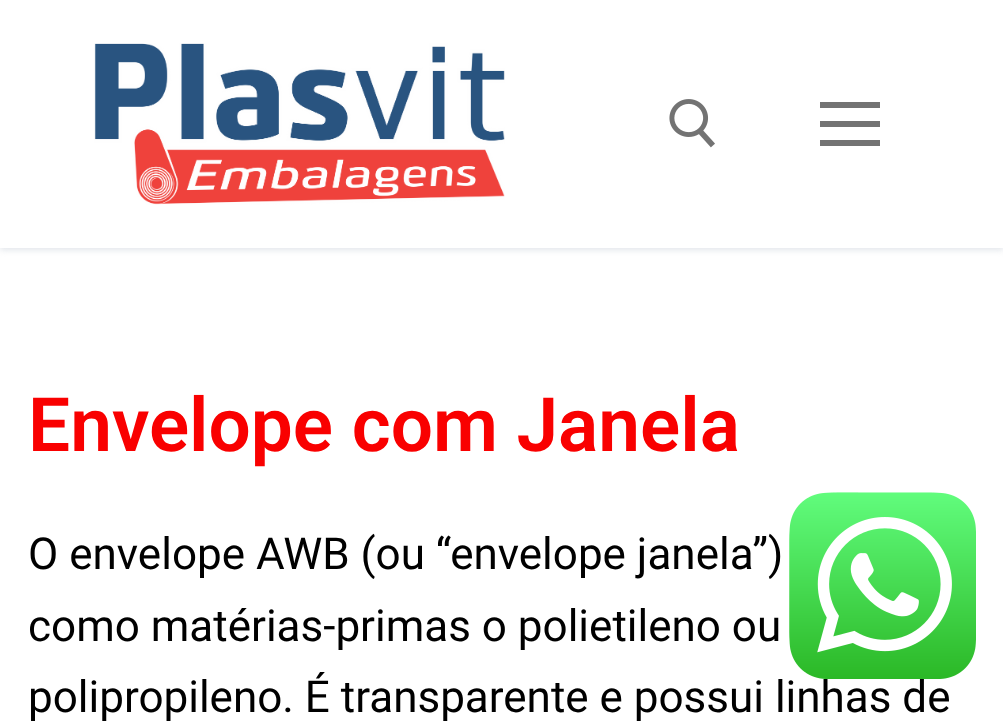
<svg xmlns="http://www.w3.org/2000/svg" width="1003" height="728">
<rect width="100%" height="100%" fill="#fff"/>
<rect y="3" width="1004" height="247" fill="#e1e5ea" filter="blur(3px)"/>
<rect width="1003" height="248" fill="#fff"/>
<image x="94" y="43" width="411" height="162" href="media/1.png"/>
<image x="669" y="99" width="46" height="49" href="media/2.png"/>
<rect x="820" y="121" width="60" height="6" fill="#737373"/>
<rect x="820" y="102" width="60" height="6" fill="#737373"/>
<rect x="820" y="140" width="60" height="6" fill="#737373"/>
<text x="28" y="451" style="font-family:Roboto;font-size:74.75px;font-weight:600;fill:#f90000">Envelope com Janela</text>
<text x="28" y="569" style="font-family:Roboto;font-size:44px;fill:#000">O envelope AWB (ou “envelope janela”)</text>
<text x="28" y="641" style="font-family:Roboto;font-size:44px;fill:#000">como matérias-primas o polietileno ou</text>
<text x="28" y="712" style="font-family:Roboto;font-size:44px;fill:#000">polipropileno. É transparente e possui linhas de</text>
<image x="789" y="492" width="187" height="187" href="media/3.png"/>
</svg>
